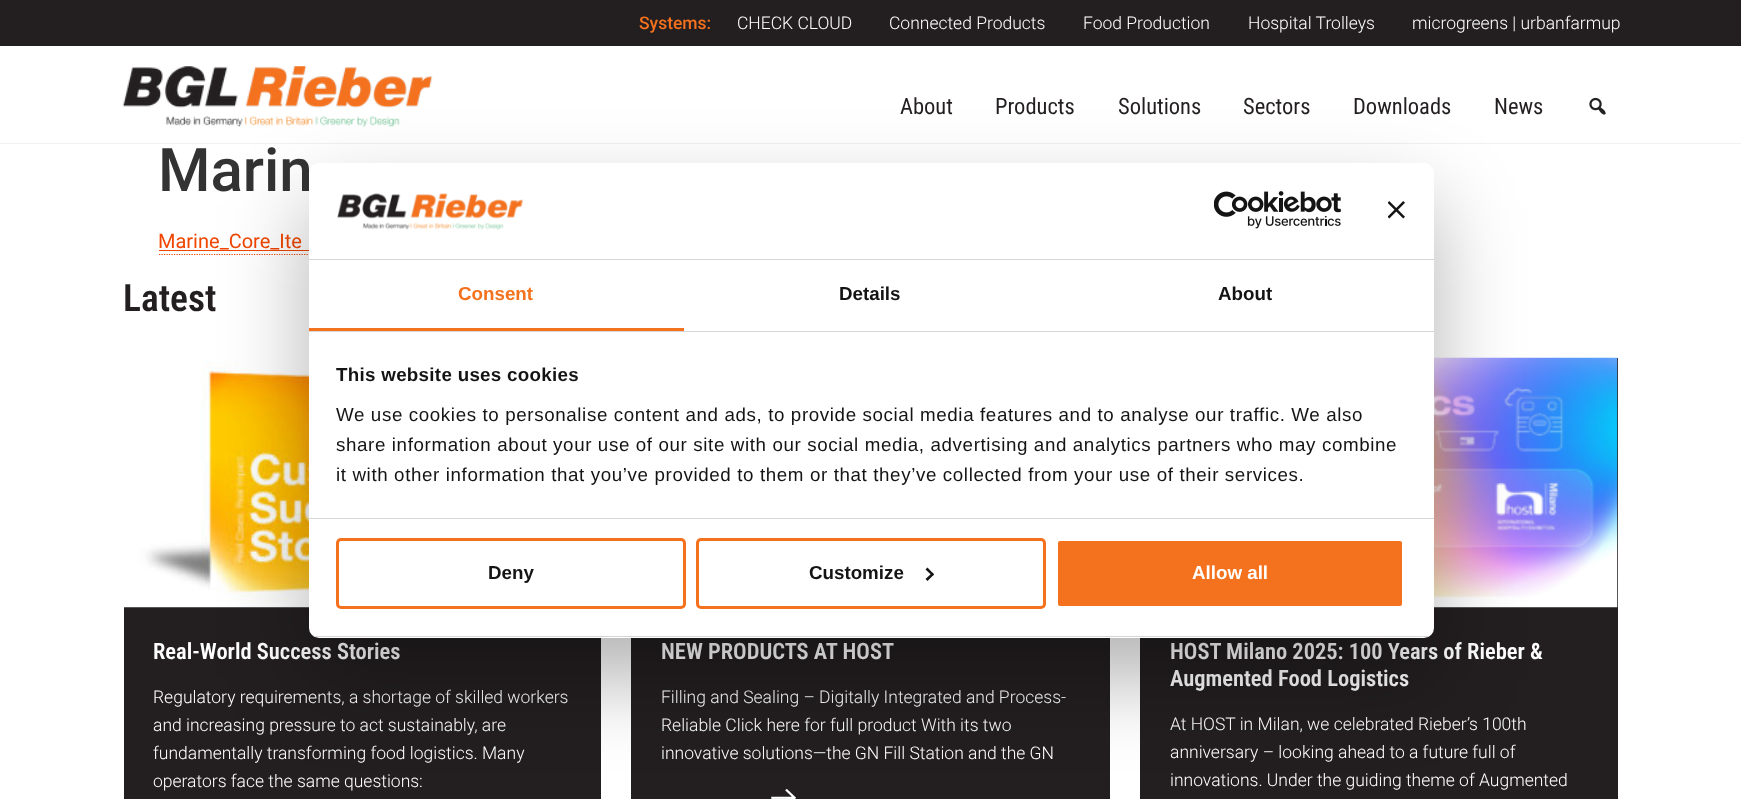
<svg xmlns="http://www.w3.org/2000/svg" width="1741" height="799">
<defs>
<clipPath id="clip1"><rect x="309" y="163" width="1125" height="475" rx="10"/></clipPath>
</defs>
<rect width="100%" height="100%" fill="#fff"/>
<rect width="1741" height="46" fill="#231f20"/>
<text x="639" y="29" style="font-family:Roboto;font-size:17.5px;font-weight:500;fill:#f4711e">Systems:</text>
<text x="737" y="29" style="font-family:Roboto;font-size:17.5px;font-weight:300;fill:#fff">CHECK CLOUD</text>
<text x="889" y="29" style="font-family:Roboto;font-size:17.5px;font-weight:300;fill:#fff">Connected Products</text>
<text x="1083" y="29" style="font-family:Roboto;font-size:17.5px;font-weight:300;fill:#fff">Food Production</text>
<text x="1248" y="29" style="font-family:Roboto;font-size:17.5px;font-weight:300;fill:#fff">Hospital Trolleys</text>
<text x="1412" y="29" style="font-family:Roboto;font-size:17.5px;font-weight:300;fill:#fff">microgreens | urbanfarmup</text>
<rect y="143" width="1741" height="1" fill="#f1f1f1"/>
<image x="122" y="66" width="311" height="61" href="media/1.png"/>
<text x="900" y="114" style="font-family:Roboto Condensed;font-size:22.5px;fill:#231f20">About</text>
<text x="995" y="114" style="font-family:Roboto Condensed;font-size:22.5px;fill:#231f20">Products</text>
<text x="1118" y="114" style="font-family:Roboto Condensed;font-size:22.5px;fill:#231f20">Solutions</text>
<text x="1243" y="114" style="font-family:Roboto Condensed;font-size:22.5px;fill:#231f20">Sectors</text>
<text x="1353" y="114" style="font-family:Roboto Condensed;font-size:22.5px;fill:#231f20">Downloads</text>
<text x="1494" y="114" style="font-family:Roboto Condensed;font-size:22.5px;fill:#231f20">News</text>
<image x="1589" y="97" width="17" height="18" href="media/2.png"/>
<text x="158" y="191" style="font-family:Roboto;font-size:60px;font-weight:500;fill:#333">Marin</text>
<text x="158" y="248" style="font-family:Roboto;font-size:20px;fill:#f04600">Marine_Core_Ite</text>
<path d="M159 254.5h292" fill="none" stroke="#f04600" stroke-width="1.2" stroke-dasharray="1.25 1.25"/>
<rect x="159" y="250" width="150" height="1" fill="#f04600"/>
<text x="123" y="311" style="font-family:Roboto Condensed;font-size:37.5px;font-weight:600;fill:#231f20">Latest</text>
<rect x="124" y="607" width="477" height="192" fill="#231f20"/>
<image x="124" y="358" width="185" height="250" href="media/3.png"/>
<text x="153" y="659" style="font-family:Roboto Condensed;font-size:22.5px;font-weight:600;fill:#fff">Real-World Success Stories</text>
<text x="153" y="703" style="font-family:Roboto;font-size:17.5px;font-weight:300;fill:#fff">Regulatory requirements, a shortage of skilled workers</text>
<text x="153" y="731" style="font-family:Roboto;font-size:17.5px;font-weight:300;fill:#fff">and increasing pressure to act sustainably, are</text>
<text x="153" y="759" style="font-family:Roboto;font-size:17.5px;font-weight:300;fill:#fff">fundamentally transforming food logistics. Many</text>
<text x="153" y="787" style="font-family:Roboto;font-size:17.5px;font-weight:300;fill:#fff">operators face the same questions:</text>
<rect x="631" y="638" width="479" height="161" fill="#231f20"/>
<text x="661" y="659" style="font-family:Roboto Condensed;font-size:22.5px;font-weight:600;fill:#fff">NEW PRODUCTS AT HOST</text>
<text x="661" y="703" style="font-family:Roboto;font-size:17.5px;font-weight:300;fill:#fff">Filling and Sealing – Digitally Integrated and Process-</text>
<text x="661" y="731" style="font-family:Roboto;font-size:17.5px;font-weight:300;fill:#fff">Reliable Click here for full product With its two</text>
<text x="661" y="759" style="font-family:Roboto;font-size:17.5px;font-weight:300;fill:#fff">innovative solutions—the GN Fill Station and the GN</text>
<image x="771" y="789" width="25" height="10" href="media/4.png"/>
<rect x="1140" y="358" width="478" height="441" fill="#231f20"/>
<image x="1434" y="357" width="184" height="251" href="media/5.png"/>
<text x="1170" y="659" style="font-family:Roboto Condensed;font-size:22.5px;font-weight:600;fill:#fff">HOST Milano 2025: 100 Years of Rieber &amp;</text>
<text x="1170" y="686" style="font-family:Roboto Condensed;font-size:22.5px;font-weight:600;fill:#fff">Augmented Food Logistics</text>
<text x="1170" y="730" style="font-family:Roboto;font-size:17.5px;font-weight:300;fill:#fff">At HOST in Milan, we celebrated Rieber’s 100th</text>
<text x="1170" y="758" style="font-family:Roboto;font-size:17.5px;font-weight:300;fill:#fff">anniversary – looking ahead to a future full of</text>
<text x="1170" y="786" style="font-family:Roboto;font-size:17.5px;font-weight:300;fill:#fff">innovations. Under the guiding theme of Augmented</text>
<rect x="309" y="203" width="1125" height="475" rx="10" fill="#0000004d" filter="blur(42.5px)"/>
<rect x="309" y="163" width="1125" height="475" rx="10" fill="#fff"/>
<rect x="309" y="259" width="1125" height="1" fill="#d6d6d6"/>
<image x="337" y="193" width="187" height="37" href="media/6.png"/>
<image x="1214" y="191" width="127" height="38" href="media/7.png"/>
<image x="1388" y="201" width="17" height="18" href="media/8.png"/>
<rect x="309" y="331" width="1125" height="1" fill="#d6d6d6"/>
<rect x="309" y="328" width="375" height="3" fill="#f4711e"/>
<text x="458" y="300" style="font-family:Liberation Sans;font-size:18.75px;font-weight:bold;fill:#f4711e">Consent</text>
<text x="839" y="300" style="font-family:Liberation Sans;font-size:18.75px;font-weight:bold;fill:#141414">Details</text>
<text x="1218" y="300" style="font-family:Liberation Sans;font-size:18.75px;font-weight:bold;fill:#141414">About</text>
<rect x="309" y="518" width="1125" height="1" fill="#d6d6d6"/>
<text x="336" y="381" style="font-family:Liberation Sans;font-size:18.75px;font-weight:bold;letter-spacing:0.3px;fill:#141414">This website uses cookies</text>
<text x="336" y="421" style="font-family:Liberation Sans;font-size:18.75px;letter-spacing:0.62px;fill:#141414">We use cookies to personalise content and ads, to provide social media features and to analyse our traffic. We also</text>
<text x="336" y="451" style="font-family:Liberation Sans;font-size:18.75px;letter-spacing:0.62px;fill:#141414">share information about your use of our site with our social media, advertising and analytics partners who may combine</text>
<text x="336" y="481" style="font-family:Liberation Sans;font-size:18.75px;letter-spacing:0.62px;fill:#141414">it with other information that you’ve provided to them or that they’ve collected from your use of their services.</text>
<g clip-path="url(#clip1)">
<rect x="309" y="636" width="1125" height="1" fill="#d6d6d6"/>
</g>
<rect x="337.5" y="539.5" width="347" height="68" rx="3.5" fill="none" stroke="#f4711e" stroke-width="3"/>
<text x="488" y="579" style="font-family:Liberation Sans;font-size:18.75px;font-weight:bold;fill:#141414">Deny</text>
<rect x="697.5" y="539.5" width="347" height="68" rx="3.5" fill="none" stroke="#f4711e" stroke-width="3"/>
<text x="809" y="579" style="font-family:Liberation Sans;font-size:18.75px;font-weight:bold;fill:#141414">Customize</text>
<path d="M927.5 567.5l6.5 7l-1.5 1.5l-7-6.5z" fill="#141414"/>
<path d="M932.5 572.5l1.5 2l-6.5 6.5l-2-2z" fill="#141414"/>
<rect x="1056.5" y="539.5" width="347" height="68" rx="3.5" fill="#f4711e" stroke="#fff" stroke-width="3"/>
<text x="1192" y="579" style="font-family:Liberation Sans;font-size:18.75px;font-weight:bold;fill:#fff">Allow all</text>
</svg>
